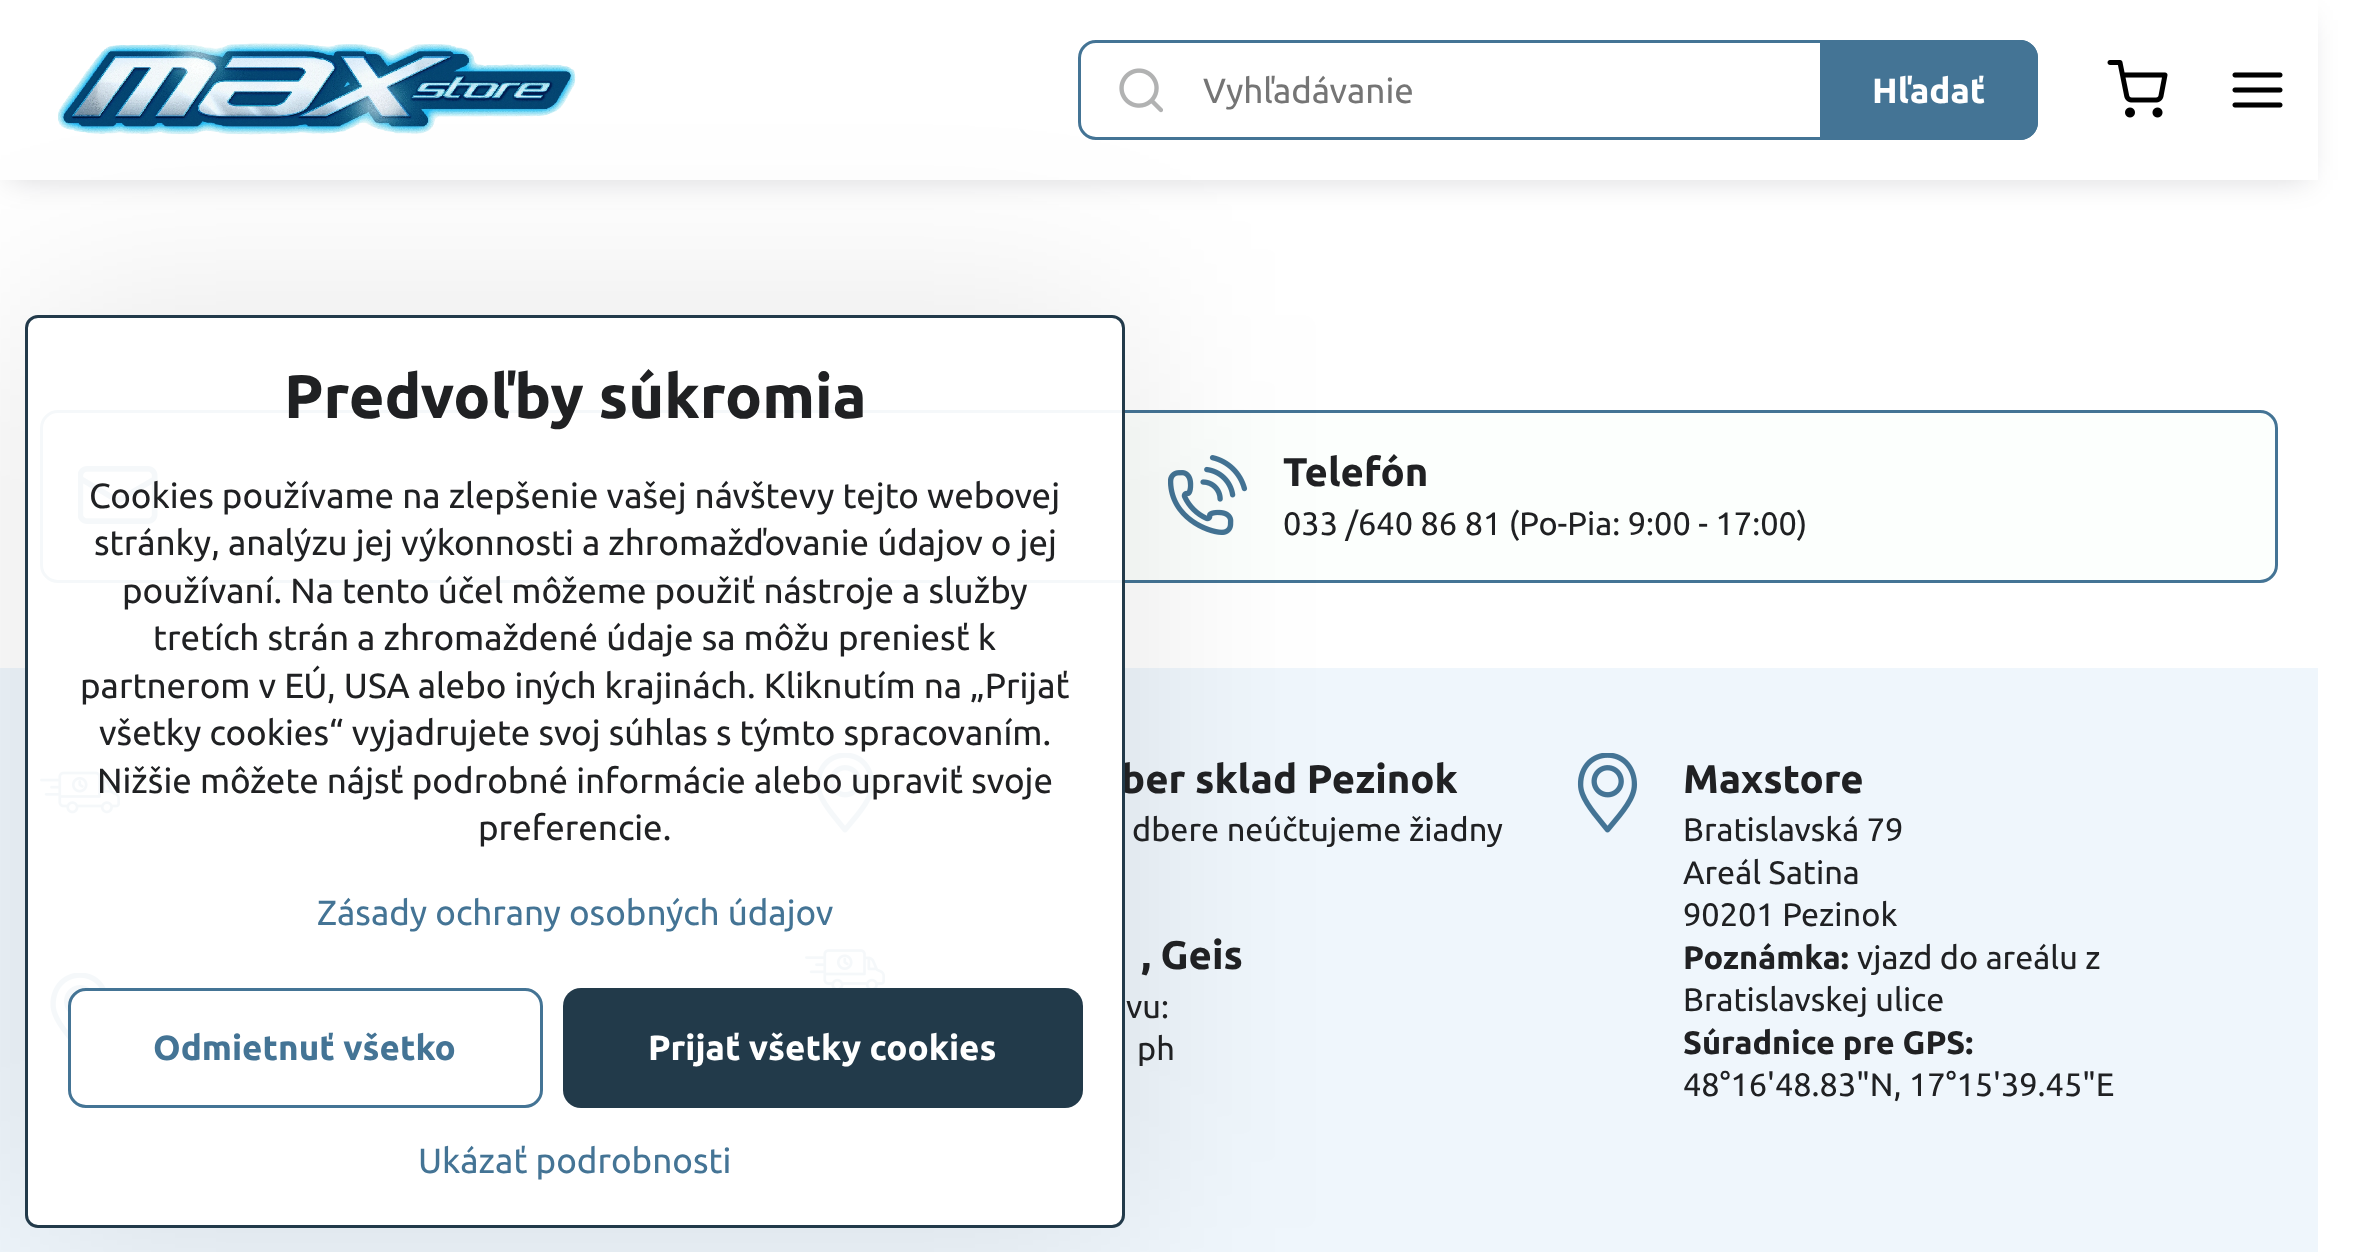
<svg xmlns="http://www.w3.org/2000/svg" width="2355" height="1252">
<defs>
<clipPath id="clip1"><path d="M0 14h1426v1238h-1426zm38 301h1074c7 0 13 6 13 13v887c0 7-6 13-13 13h-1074c-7 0-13-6-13-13v-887c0-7 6-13 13-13z" clip-rule="evenodd"/></clipPath>
</defs>
<rect width="100%" height="100%" fill="#fff"/>
<rect x="10" y="20" width="2298" height="160" fill="#00001426" filter="blur(15px)"/>
<rect width="2318" height="180" fill="#fff"/>
<image x="58" y="43" width="518" height="92" href="media/1.png"/>
<rect x="1079.5" y="41.5" width="957" height="97" rx="16.5" fill="none" stroke="#447495" stroke-width="3"/>
<image x="1119" y="68" width="44" height="45" href="media/2.png"/>
<rect x="41.5" y="411.5" width="2235" height="170" rx="16.5" fill="#fcfffd" stroke="#447495" stroke-width="3"/>
<image x="78" y="466" width="80" height="58" href="media/5.png"/>
<image x="1168" y="455" width="80" height="80" href="media/6.png"/>
<rect y="668" width="2318" height="584" fill="#eff6fc"/>
<image x="40" y="771" width="80" height="43" href="media/7.png"/>
<image x="50" y="973" width="56" height="66" href="media/8.png"/>
<image x="815" y="753" width="60" height="80" href="media/9.png"/>
<image x="805" y="949" width="80" height="39" href="media/10.png"/>
<g clip-path="url(#clip1)">
<rect x="25" y="315" width="1100" height="913" rx="13" fill="#0000001a" filter="blur(100px)"/>
</g>
<text x="1121" y="793" style="font-family:Ubuntu;font-size:40px;font-weight:bold;fill:#202123">ber sklad Pezinok</text>
<rect x="26.5" y="316.5" width="1097" height="910" rx="11.5" fill="#fffffff2" stroke="#223a4a" stroke-width="3"/>
<text x="284" y="418" style="font-family:Ubuntu;font-size:61.25px;font-weight:bold;fill:#202123">Predvoľby súkromia</text>
<text x="89" y="508" style="font-family:Ubuntu;font-size:35px;fill:#202123">Cookies používame na zlepšenie vašej návštevy tejto webovej</text>
<text x="94" y="555" style="font-family:Ubuntu;font-size:35px;fill:#202123">stránky, analýzu jej výkonnosti a zhromažďovanie údajov o jej</text>
<text x="122" y="603" style="font-family:Ubuntu;font-size:35px;fill:#202123">používaní. Na tento účel môžeme použiť nástroje a služby</text>
<text x="153" y="650" style="font-family:Ubuntu;font-size:35px;fill:#202123">tretích strán a zhromaždené údaje sa môžu preniesť k</text>
<text x="80" y="698" style="font-family:Ubuntu;font-size:35px;fill:#202123">partnerom v EÚ, USA alebo iných krajinách. Kliknutím na „Prijať</text>
<text x="99" y="745" style="font-family:Ubuntu;font-size:35px;fill:#202123">všetky cookies“ vyjadrujete svoj súhlas s týmto spracovaním.</text>
<text x="97" y="793" style="font-family:Ubuntu;font-size:35px;fill:#202123">Nižšie môžete nájsť podrobné informácie alebo upraviť svoje</text>
<text x="478" y="840" style="font-family:Ubuntu;font-size:35px;fill:#202123">preferencie.</text>
<text x="317" y="925" style="font-family:Ubuntu;font-size:35px;fill:#447495">Zásady ochrany osobných údajov</text>
<rect x="69.5" y="989.5" width="472" height="117" rx="16.5" fill="#fff" stroke="#447495" stroke-width="3"/>
<text x="153" y="1060" style="font-family:Ubuntu;font-size:35px;font-weight:bold;fill:#447495">Odmietnuť všetko</text>
<rect x="563" y="988" width="520" height="120" rx="18" fill="#223a4a"/>
<text x="648" y="1060" style="font-family:Ubuntu;font-size:35px;font-weight:bold;fill:#fff">Prijať všetky cookies</text>
<text x="418" y="1173" style="font-family:Ubuntu;font-size:35px;fill:#447495">Ukázať podrobnosti</text>
<text x="1203" y="103" style="font-family:Ubuntu;font-size:35px;fill:#757575">Vyhľadávanie</text>
<path d="M1820 40h200c10 0 18 8 18 18v64c0 10-8 18-18 18h-200z" fill="#447495"/>
<text x="1872" y="103" style="font-family:Ubuntu;font-size:35px;font-weight:bold;fill:#fff">Hľadať</text>
<image x="2107" y="60" width="61" height="58" href="media/3.png"/>
<image x="2232" y="72" width="51" height="36" href="media/4.png"/>
<text x="1283" y="486" style="font-family:Ubuntu;font-size:40px;font-weight:bold;fill:#202123">Telefón</text>
<text x="1283" y="535" style="font-family:Ubuntu;font-size:32.5px;fill:#202123">033 /640 86 81 (Po-Pia: 9:00 - 17:00)</text>
<text x="1132" y="841" style="font-family:Ubuntu;font-size:32.5px;fill:#202123">dbere neúčtujeme žiadny</text>
<text x="1141" y="969" style="font-family:Ubuntu;font-size:40px;font-weight:bold;fill:#202123">, Geis</text>
<text x="1126" y="1018" style="font-family:Ubuntu;font-size:32.5px;fill:#202123">vu:</text>
<text x="1137" y="1060" style="font-family:Ubuntu;font-size:32.5px;fill:#202123">ph</text>
<image x="1577" y="753" width="61" height="80" href="media/11.png"/>
<text x="1683" y="793" style="font-family:Ubuntu;font-size:40px;font-weight:bold;fill:#202123">Maxstore</text>
<text x="1683" y="841" style="font-family:Ubuntu;font-size:32.5px;fill:#202123">Bratislavská 79</text>
<text x="1683" y="884" style="font-family:Ubuntu;font-size:32.5px;fill:#202123">Areál Satina</text>
<text x="1683" y="926" style="font-family:Ubuntu;font-size:32.5px;fill:#202123">90201 Pezinok</text>
<text x="1683" y="969" style="font-family:Ubuntu;font-size:32.5px;font-weight:bold;fill:#202123">Poznámka:</text>
<text x="1857" y="969" style="font-family:Ubuntu;font-size:32.5px;fill:#202123">vjazd do areálu z</text>
<text x="1683" y="1011" style="font-family:Ubuntu;font-size:32.5px;fill:#202123">Bratislavskej ulice</text>
<text x="1683" y="1054" style="font-family:Ubuntu;font-size:32.5px;font-weight:bold;fill:#202123">Súradnice pre GPS:</text>
<text x="1683" y="1096" style="font-family:Ubuntu;font-size:32.5px;fill:#202123">48°16'48.83"N, 17°15'39.45"E</text>
</svg>
